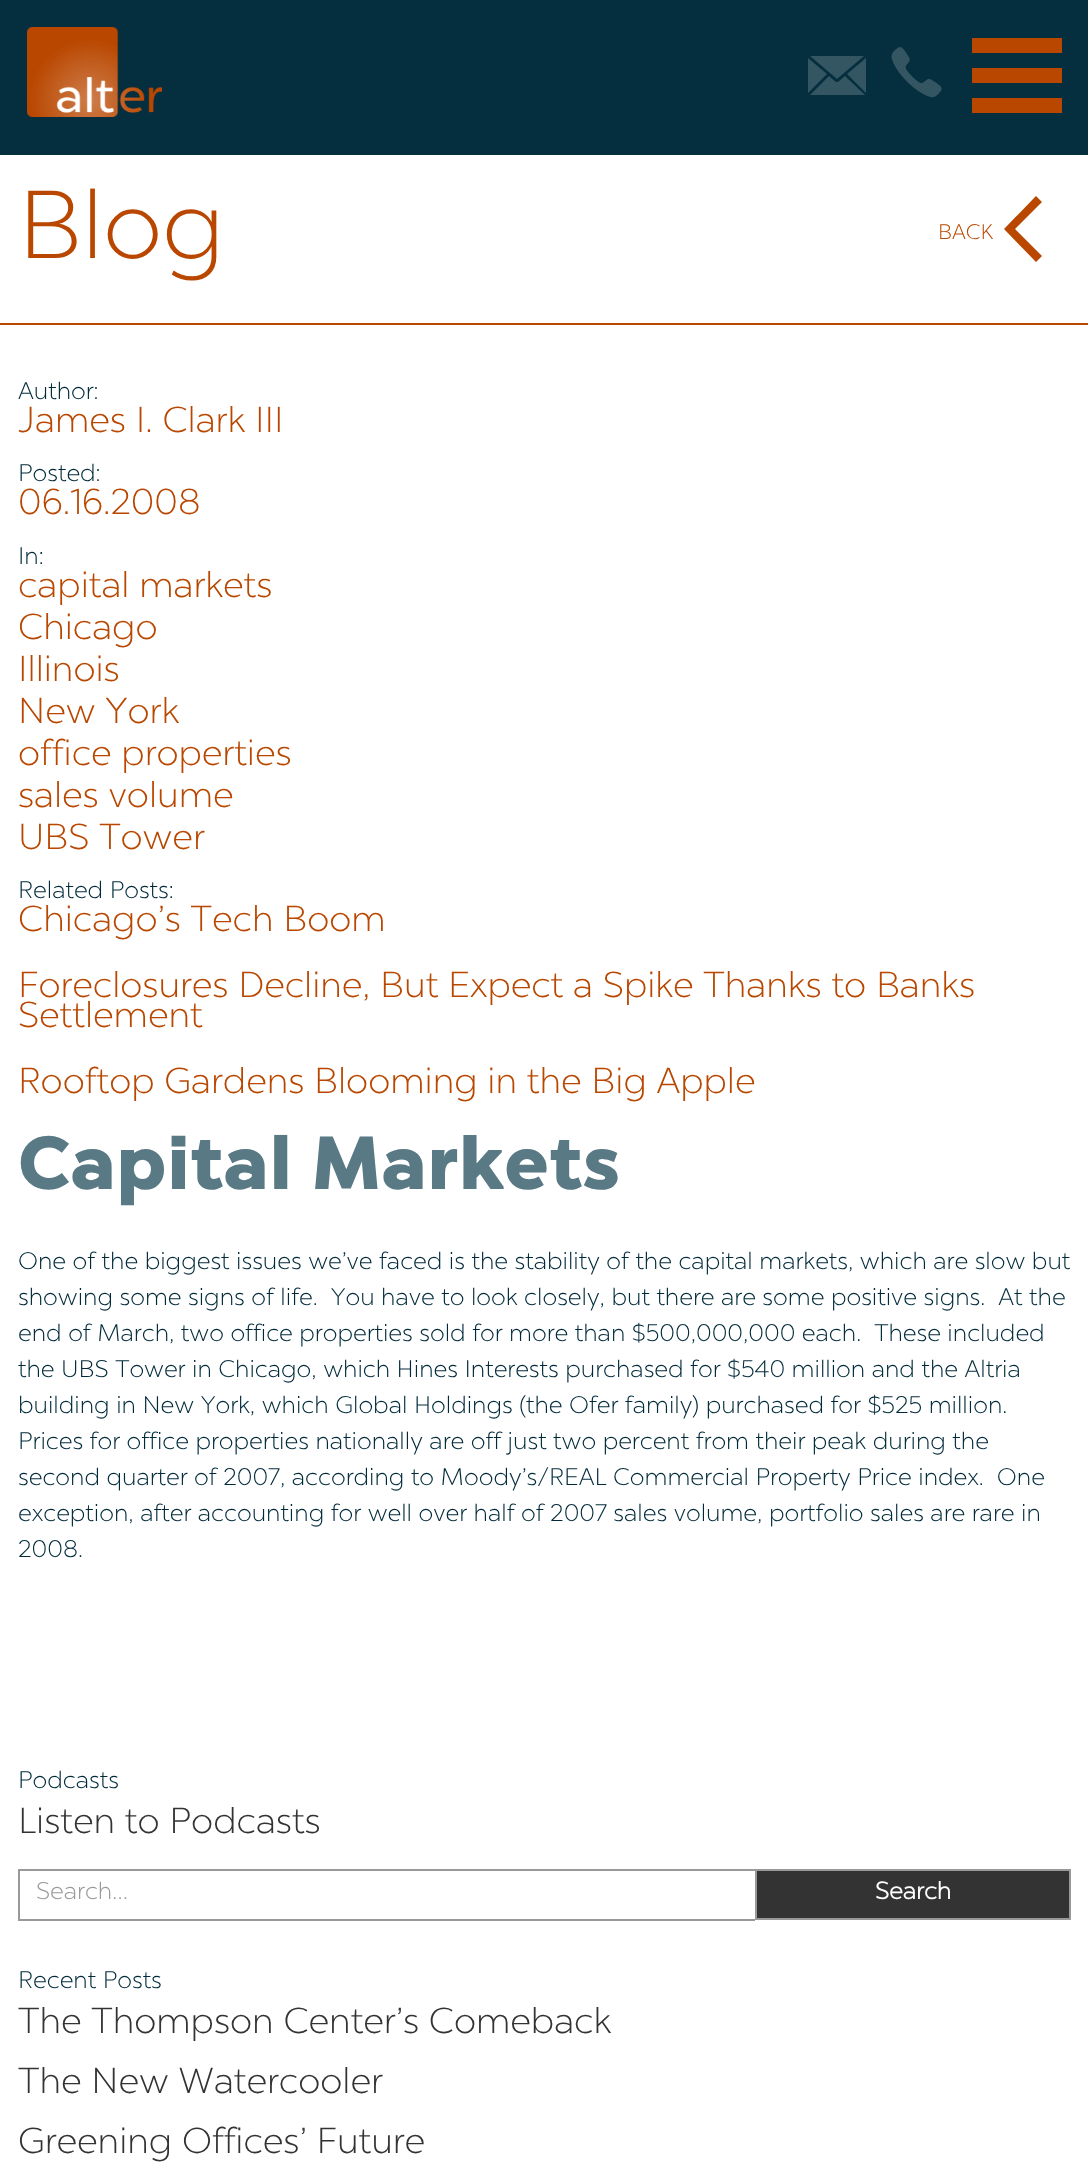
<svg xmlns="http://www.w3.org/2000/svg" width="1088" height="2182">
<rect width="100%" height="100%" fill="#fff"/>
<rect width="1088" height="155" fill="#052e3e"/>
<image x="27" y="27" width="135" height="90" href="media/1.png"/>
<path d="M837 79l27-23h-54zm29-20v-1l-19 16l19 19zm-58-1v35l19-19zm37 18c-10 8-6 8-16 0l-19 19h55z" fill="#345562"/>
<image x="891" y="47" width="51" height="51" href="media/2.png"/>
<rect x="972" y="98" width="90" height="15" fill="#b94700"/>
<rect x="972" y="38" width="90" height="15" fill="#b94700"/>
<rect x="972" y="68" width="90" height="15" fill="#b94700"/>
<rect y="323" width="1088" height="2" fill="#b94700"/>
<text x="18" y="258" style="font-family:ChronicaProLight;font-size:96px;fill:#b94700">Blog</text>
<text x="938" y="239" style="font-family:ChronicaProLight;font-size:21px;fill:#b94700">BACK</text>
<path d="M1036 196l-32 33l32 33l6-6l-27-27l27-27z" fill="#b94700"/>
<text x="18" y="399" style="font-family:ChronicaProLight;font-size:24px;fill:#002a3a">Author:</text>
<text x="18" y="432" style="font-family:ChronicaProLight;font-size:36px;fill:#b94700">James I. Clark III</text>
<text x="18" y="481" style="font-family:ChronicaProLight;font-size:24px;fill:#002a3a">Posted:</text>
<text x="18" y="514" style="font-family:ChronicaProLight;font-size:36px;fill:#b94700">06.16.2008</text>
<text x="18" y="564" style="font-family:ChronicaProLight;font-size:24px;fill:#002a3a">In:</text>
<text x="18" y="597" style="font-family:ChronicaProLight;font-size:36px;fill:#b94700">capital markets</text>
<text x="18" y="639" style="font-family:ChronicaProLight;font-size:36px;fill:#b94700">Chicago</text>
<text x="18" y="681" style="font-family:ChronicaProLight;font-size:36px;fill:#b94700">Illinois</text>
<text x="18" y="723" style="font-family:ChronicaProLight;font-size:36px;fill:#b94700">New York</text>
<text x="18" y="765" style="font-family:ChronicaProLight;font-size:36px;fill:#b94700">office properties</text>
<text x="18" y="807" style="font-family:ChronicaProLight;font-size:36px;fill:#b94700">sales volume</text>
<text x="18" y="849" style="font-family:ChronicaProLight;font-size:36px;fill:#b94700">UBS Tower</text>
<text x="18" y="898" style="font-family:ChronicaProLight;font-size:24px;fill:#002a3a">Related Posts:</text>
<text x="18" y="931" style="font-family:ChronicaProLight;font-size:36px;fill:#b94700">Chicago’s Tech Boom</text>
<text x="18" y="997" style="font-family:ChronicaProLight;font-size:36px;fill:#b94700">Foreclosures Decline, But Expect a Spike Thanks to Banks</text>
<text x="18" y="1027" style="font-family:ChronicaProLight;font-size:36px;fill:#b94700">Settlement</text>
<text x="18" y="1093" style="font-family:ChronicaProLight;font-size:36px;fill:#b94700">Rooftop Gardens Blooming in the Big Apple</text>
<text x="18" y="1189" style="font-family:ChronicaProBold;font-size:72px;font-weight:bold;letter-spacing:3px;fill:#597985">Capital Markets</text>
<text x="18" y="1269" style="font-family:ChronicaProLight;font-size:24px;fill:#002a3a">One of the biggest issues we’ve faced is the stability of the capital markets, which are slow but</text>
<text x="18" y="1305" style="font-family:ChronicaProLight;font-size:24px;fill:#002a3a" xml:space="preserve">showing some signs of life.  You have to look closely, but there are some positive signs.  At the</text>
<text x="18" y="1341" style="font-family:ChronicaProLight;font-size:24px;fill:#002a3a" xml:space="preserve">end of March, two office properties sold for more than $500,000,000 each.  These included</text>
<text x="18" y="1377" style="font-family:ChronicaProLight;font-size:24px;fill:#002a3a">the UBS Tower in Chicago, which Hines Interests purchased for $540 million and the Altria</text>
<text x="18" y="1413" style="font-family:ChronicaProLight;font-size:24px;fill:#002a3a">building in New York, which Global Holdings (the Ofer family) purchased for $525 million.</text>
<text x="18" y="1449" style="font-family:ChronicaProLight;font-size:24px;fill:#002a3a">Prices for office properties nationally are off just two percent from their peak during the</text>
<text x="18" y="1485" style="font-family:ChronicaProLight;font-size:24px;fill:#002a3a" xml:space="preserve">second quarter of 2007, according to Moody’s/REAL Commercial Property Price index.  One</text>
<text x="18" y="1521" style="font-family:ChronicaProLight;font-size:24px;fill:#002a3a">exception, after accounting for well over half of 2007 sales volume, portfolio sales are rare in</text>
<text x="18" y="1557" style="font-family:ChronicaProLight;font-size:24px;fill:#002a3a">2008.</text>
<text x="18" y="1788" style="font-family:ChronicaProLight;font-size:24px;fill:#002a3a">Podcasts</text>
<text x="18" y="1833" style="font-family:ChronicaProLight;font-size:36px;fill:#333">Listen to Podcasts</text>
<rect x="18" y="1869" width="737" height="2" fill="#999"/>
<rect x="18" y="1919" width="737" height="2" fill="#999"/>
<rect x="18" y="1869" width="2" height="51" fill="#999"/>
<text x="36" y="1899" style="font-family:ChronicaProLight;font-size:24px;fill:#999">Search…</text>
<rect x="756" y="1870" width="314" height="49" fill="#333" stroke="#999" stroke-width="2"/>
<text x="875" y="1899" style="font-family:ChronicaProLight;font-size:24px;font-weight:bold;fill:#fff">Search</text>
<text x="18" y="1988" style="font-family:ChronicaProLight;font-size:24px;fill:#002a3a">Recent Posts</text>
<text x="18" y="2033" style="font-family:ChronicaProLight;font-size:36px;fill:#333">The Thompson Center’s Comeback</text>
<text x="18" y="2093" style="font-family:ChronicaProLight;font-size:36px;fill:#333">The New Watercooler</text>
<text x="18" y="2153" style="font-family:ChronicaProLight;font-size:36px;fill:#333">Greening Offices’ Future</text>
</svg>
